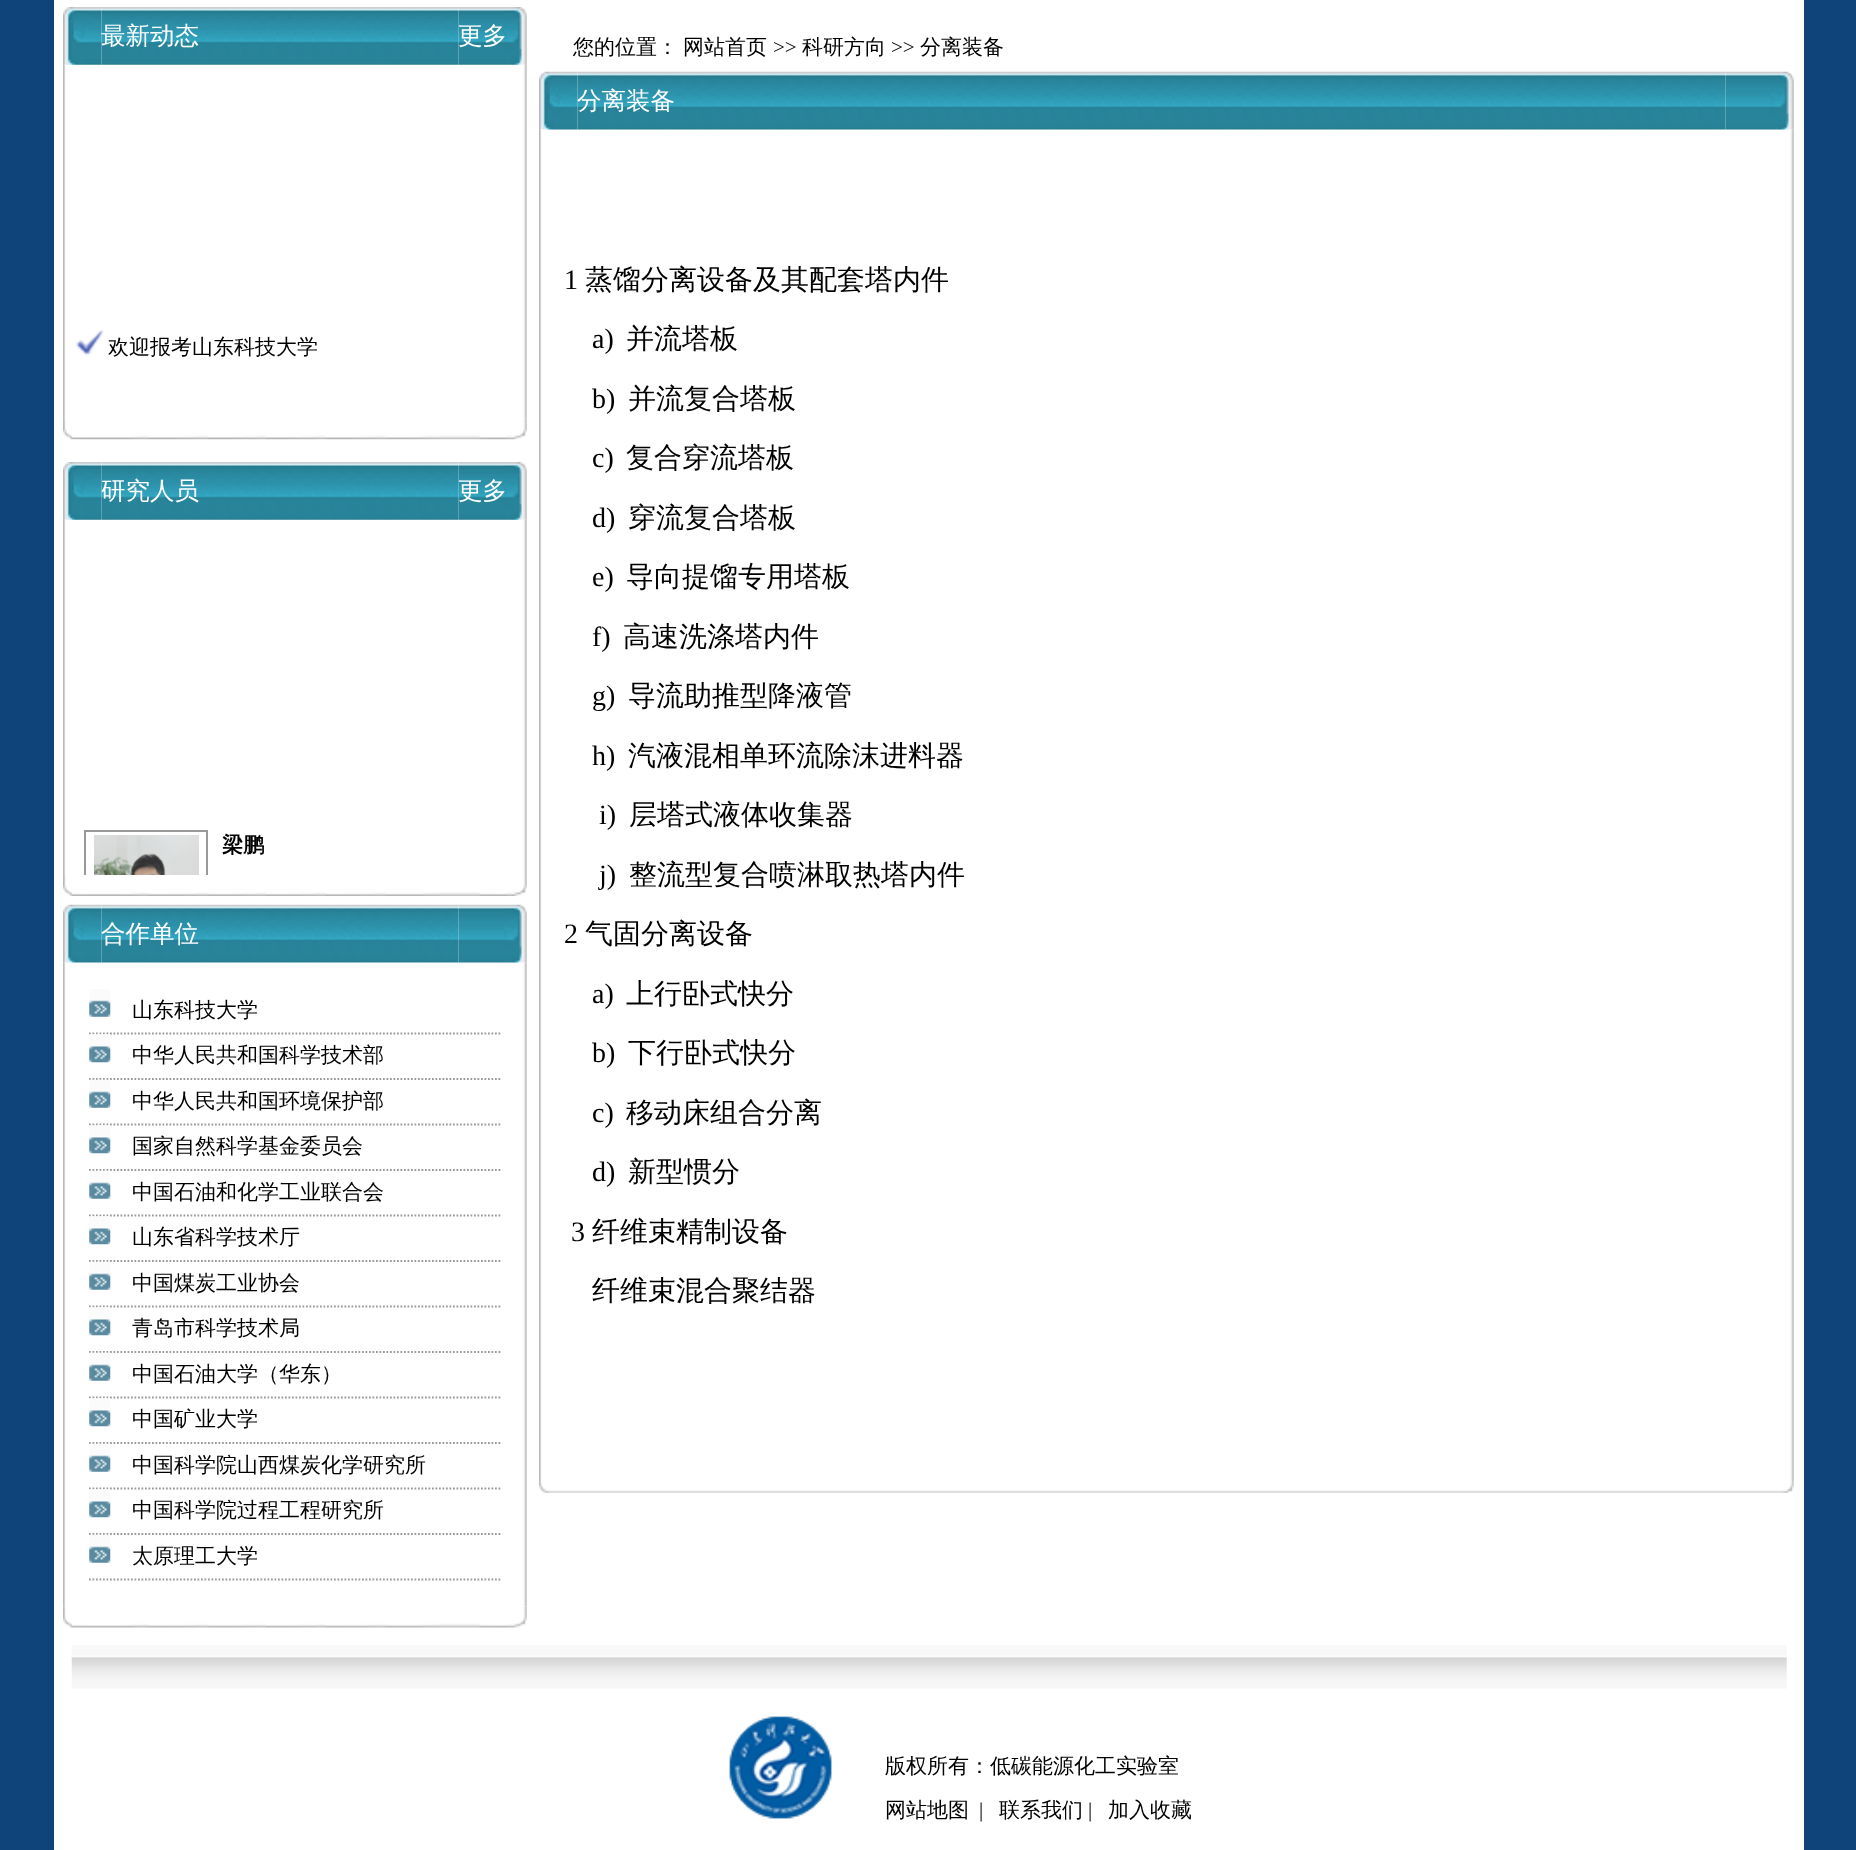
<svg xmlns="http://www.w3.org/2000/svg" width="1856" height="1850">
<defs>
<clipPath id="clip1"><rect x="63" y="537" width="464" height="338"/></clipPath>
</defs>
<rect width="100%" height="100%" fill="#0f447a"/>
<rect x="54" width="1750" height="1850" fill="#fff"/>
<image x="63" y="64" width="464" height="355" href="media/4.png"/>
<image x="63" y="7" width="39" height="58" href="media/1.png"/>
<image x="101" y="7" width="358" height="58" href="media/2.png"/>
<text x="101" y="44" style="font-family:WenQuanYi Zen Hei;font-size:24.5px;font-weight:500;fill:#fff">最新动态</text>
<image x="458" y="7" width="69" height="58" href="media/3.png"/>
<text x="458" y="44" style="font-family:WenQuanYi Zen Hei;font-size:24.5px;font-weight:500;fill:#fff">更多</text>
<image x="76" y="330" width="28" height="26" href="media/5.png"/>
<text x="108" y="354" style="font-family:WenQuanYi Zen Hei;font-size:21px;font-weight:500;fill:#000">欢迎报考山东科技大学</text>
<image x="63" y="418" width="464" height="22" href="media/6.png"/>
<image x="63" y="519" width="464" height="356" href="media/8.png"/>
<image x="63" y="462" width="39" height="58" href="media/1.png"/>
<image x="101" y="462" width="358" height="58" href="media/7.png"/>
<text x="101" y="499" style="font-family:WenQuanYi Zen Hei;font-size:24.5px;font-weight:500;fill:#fff">研究人员</text>
<image x="458" y="462" width="69" height="58" href="media/3.png"/>
<text x="458" y="499" style="font-family:WenQuanYi Zen Hei;font-size:24.5px;font-weight:500;fill:#fff">更多</text>
<image x="63" y="875" width="464" height="21" href="media/10.png"/>
<image x="63" y="962" width="464" height="645" href="media/14.png"/>
<image x="63" y="904" width="39" height="59" href="media/11.png"/>
<image x="101" y="904" width="358" height="59" href="media/12.png"/>
<g clip-path="url(#clip1)">
<rect x="85" y="831" width="122" height="139" fill="none" stroke="#999" stroke-width="2"/>
</g>
<image x="94" y="835" width="105" height="40" href="media/9.png"/>
<text x="222" y="852" style="font-family:WenQuanYi Zen Hei;font-size:21px;font-weight:bold;fill:#000">梁鹏</text>
<text x="101" y="942" style="font-family:WenQuanYi Zen Hei;font-size:24.5px;font-weight:500;fill:#fff">合作单位</text>
<image x="458" y="904" width="69" height="59" href="media/13.png"/>
<image x="89" y="989" width="22" height="28" href="media/15.png"/>
<path d="M89 1033.5h411.5" fill="none" stroke="#999" stroke-width="1.8" stroke-dasharray="1.75 1.75"/>
<text x="132" y="1017" style="font-family:WenQuanYi Zen Hei;font-size:21px;font-weight:500;fill:#000">山东科技大学</text>
<image x="89" y="1034" width="22" height="29" href="media/16.png"/>
<path d="M89 1079h411.5" fill="none" stroke="#999" stroke-width="1.8" stroke-dasharray="1.75 1.75"/>
<text x="132" y="1062" style="font-family:WenQuanYi Zen Hei;font-size:21px;font-weight:500;fill:#000">中华人民共和国科学技术部</text>
<image x="89" y="1079" width="22" height="29" href="media/17.png"/>
<path d="M89 1124.5h411.5" fill="none" stroke="#999" stroke-width="1.8" stroke-dasharray="1.75 1.75"/>
<text x="132" y="1108" style="font-family:WenQuanYi Zen Hei;font-size:21px;font-weight:500;fill:#000">中华人民共和国环境保护部</text>
<image x="89" y="1125" width="22" height="29" href="media/16.png"/>
<path d="M89 1170h411.5" fill="none" stroke="#999" stroke-width="1.8" stroke-dasharray="1.75 1.75"/>
<text x="132" y="1153" style="font-family:WenQuanYi Zen Hei;font-size:21px;font-weight:500;fill:#000">国家自然科学基金委员会</text>
<image x="89" y="1170" width="22" height="29" href="media/17.png"/>
<path d="M89 1215.5h411.5" fill="none" stroke="#999" stroke-width="1.8" stroke-dasharray="1.75 1.75"/>
<text x="132" y="1199" style="font-family:WenQuanYi Zen Hei;font-size:21px;font-weight:500;fill:#000">中国石油和化学工业联合会</text>
<image x="89" y="1216" width="22" height="29" href="media/16.png"/>
<path d="M89 1261h411.5" fill="none" stroke="#999" stroke-width="1.8" stroke-dasharray="1.75 1.75"/>
<text x="132" y="1244" style="font-family:WenQuanYi Zen Hei;font-size:21px;font-weight:500;fill:#000">山东省科学技术厅</text>
<image x="89" y="1261" width="22" height="29" href="media/17.png"/>
<path d="M89 1306.5h411.5" fill="none" stroke="#999" stroke-width="1.8" stroke-dasharray="1.75 1.75"/>
<text x="132" y="1290" style="font-family:WenQuanYi Zen Hei;font-size:21px;font-weight:500;fill:#000">中国煤炭工业协会</text>
<image x="89" y="1307" width="22" height="29" href="media/16.png"/>
<path d="M89 1352h411.5" fill="none" stroke="#999" stroke-width="1.8" stroke-dasharray="1.75 1.75"/>
<text x="132" y="1335" style="font-family:WenQuanYi Zen Hei;font-size:21px;font-weight:500;fill:#000">青岛市科学技术局</text>
<image x="89" y="1352" width="22" height="29" href="media/17.png"/>
<path d="M89 1397.5h411.5" fill="none" stroke="#999" stroke-width="1.8" stroke-dasharray="1.75 1.75"/>
<text x="132" y="1381" style="font-family:WenQuanYi Zen Hei;font-size:21px;font-weight:500;fill:#000">中国石油大学（华东）</text>
<image x="89" y="1398" width="22" height="29" href="media/16.png"/>
<path d="M89 1443h411.5" fill="none" stroke="#999" stroke-width="1.8" stroke-dasharray="1.75 1.75"/>
<text x="132" y="1426" style="font-family:WenQuanYi Zen Hei;font-size:21px;font-weight:500;fill:#000">中国矿业大学</text>
<image x="89" y="1443" width="22" height="29" href="media/18.png"/>
<path d="M89 1488.5h411.5" fill="none" stroke="#999" stroke-width="1.8" stroke-dasharray="1.75 1.75"/>
<text x="132" y="1472" style="font-family:WenQuanYi Zen Hei;font-size:21px;font-weight:500;fill:#000">中国科学院山西煤炭化学研究所</text>
<image x="89" y="1489" width="22" height="29" href="media/19.png"/>
<path d="M89 1534h411.5" fill="none" stroke="#999" stroke-width="1.8" stroke-dasharray="1.75 1.75"/>
<text x="132" y="1517" style="font-family:WenQuanYi Zen Hei;font-size:21px;font-weight:500;fill:#000">中国科学院过程工程研究所</text>
<image x="89" y="1534" width="22" height="29" href="media/17.png"/>
<path d="M89 1579.5h411.5" fill="none" stroke="#999" stroke-width="1.8" stroke-dasharray="1.75 1.75"/>
<text x="132" y="1563" style="font-family:WenQuanYi Zen Hei;font-size:21px;font-weight:500;fill:#000">太原理工大学</text>
<image x="63" y="1606" width="464" height="22" href="media/20.png"/>
<text x="573" y="54" style="font-family:WenQuanYi Zen Hei;font-size:21px;font-weight:500;fill:#000">您的位置：</text>
<text x="683" y="54" style="font-family:WenQuanYi Zen Hei;font-size:21px;font-weight:500;fill:#000">网站首页</text>
<text x="773" y="54" style="font-family:Liberation Serif;font-size:21px;fill:#000">&gt;&gt;</text>
<text x="802" y="54" style="font-family:WenQuanYi Zen Hei;font-size:21px;font-weight:500;fill:#000">科研方向</text>
<text x="891" y="54" style="font-family:Liberation Serif;font-size:21px;fill:#000">&gt;&gt;</text>
<text x="920" y="54" style="font-family:WenQuanYi Zen Hei;font-size:21px;font-weight:500;fill:#000">分离装备</text>
<image x="539" y="129" width="1255" height="1354" href="media/24.png"/>
<image x="539" y="71" width="39" height="59" href="media/21.png"/>
<image x="577" y="71" width="1149" height="59" href="media/22.png"/>
<text x="577" y="109" style="font-family:WenQuanYi Zen Hei;font-size:24.5px;font-weight:500;fill:#fff">分离装备</text>
<image x="1725" y="71" width="69" height="59" href="media/23.png"/>
<text x="564" y="289" style="font-family:Liberation Serif;font-size:28px;fill:#000">1</text>
<text x="585" y="289" style="font-family:WenQuanYi Zen Hei;font-size:28px;font-weight:500;fill:#000">蒸馏分离设备及其配套塔内件</text>
<text x="592" y="348" style="font-family:Liberation Serif;font-size:28px;fill:#000">a)</text>
<text x="626" y="348" style="font-family:WenQuanYi Zen Hei;font-size:28px;font-weight:500;fill:#000">并流塔板</text>
<text x="592" y="408" style="font-family:Liberation Serif;font-size:28px;fill:#000">b)</text>
<text x="628" y="408" style="font-family:WenQuanYi Zen Hei;font-size:28px;font-weight:500;fill:#000">并流复合塔板</text>
<text x="592" y="467" style="font-family:Liberation Serif;font-size:28px;fill:#000">c)</text>
<text x="626" y="467" style="font-family:WenQuanYi Zen Hei;font-size:28px;font-weight:500;fill:#000">复合穿流塔板</text>
<text x="592" y="527" style="font-family:Liberation Serif;font-size:28px;fill:#000">d)</text>
<text x="628" y="527" style="font-family:WenQuanYi Zen Hei;font-size:28px;font-weight:500;fill:#000">穿流复合塔板</text>
<text x="592" y="586" style="font-family:Liberation Serif;font-size:28px;fill:#000">e)</text>
<text x="626" y="586" style="font-family:WenQuanYi Zen Hei;font-size:28px;font-weight:500;fill:#000">导向提馏专用塔板</text>
<text x="592" y="646" style="font-family:Liberation Serif;font-size:28px;fill:#000">f)</text>
<text x="623" y="646" style="font-family:WenQuanYi Zen Hei;font-size:28px;font-weight:500;fill:#000">高速洗涤塔内件</text>
<text x="592" y="705" style="font-family:Liberation Serif;font-size:28px;fill:#000">g)</text>
<text x="628" y="705" style="font-family:WenQuanYi Zen Hei;font-size:28px;font-weight:500;fill:#000">导流助推型降液管</text>
<text x="592" y="765" style="font-family:Liberation Serif;font-size:28px;fill:#000">h)</text>
<text x="628" y="765" style="font-family:WenQuanYi Zen Hei;font-size:28px;font-weight:500;fill:#000">汽液混相单环流除沫进料器</text>
<text x="599" y="824" style="font-family:Liberation Serif;font-size:28px;fill:#000">i)</text>
<text x="629" y="824" style="font-family:WenQuanYi Zen Hei;font-size:28px;font-weight:500;fill:#000">层塔式液体收集器</text>
<text x="599" y="884" style="font-family:Liberation Serif;font-size:28px;fill:#000">j)</text>
<text x="629" y="884" style="font-family:WenQuanYi Zen Hei;font-size:28px;font-weight:500;fill:#000">整流型复合喷淋取热塔内件</text>
<text x="564" y="943" style="font-family:Liberation Serif;font-size:28px;fill:#000">2</text>
<text x="585" y="943" style="font-family:WenQuanYi Zen Hei;font-size:28px;font-weight:500;fill:#000">气固分离设备</text>
<text x="592" y="1003" style="font-family:Liberation Serif;font-size:28px;fill:#000">a)</text>
<text x="626" y="1003" style="font-family:WenQuanYi Zen Hei;font-size:28px;font-weight:500;fill:#000">上行卧式快分</text>
<text x="592" y="1062" style="font-family:Liberation Serif;font-size:28px;fill:#000">b)</text>
<text x="628" y="1062" style="font-family:WenQuanYi Zen Hei;font-size:28px;font-weight:500;fill:#000">下行卧式快分</text>
<text x="592" y="1122" style="font-family:Liberation Serif;font-size:28px;fill:#000">c)</text>
<text x="626" y="1122" style="font-family:WenQuanYi Zen Hei;font-size:28px;font-weight:500;fill:#000">移动床组合分离</text>
<text x="592" y="1181" style="font-family:Liberation Serif;font-size:28px;fill:#000">d)</text>
<text x="628" y="1181" style="font-family:WenQuanYi Zen Hei;font-size:28px;font-weight:500;fill:#000">新型惯分</text>
<text x="571" y="1241" style="font-family:Liberation Serif;font-size:28px;fill:#000">3</text>
<text x="592" y="1241" style="font-family:WenQuanYi Zen Hei;font-size:28px;font-weight:500;fill:#000">纤维束精制设备</text>
<text x="592" y="1300" style="font-family:WenQuanYi Zen Hei;font-size:28px;font-weight:500;fill:#000">纤维束混合聚结器</text>
<image x="539" y="1482" width="1255" height="11" href="media/25.png"/>
<image x="71" y="1645" width="1716" height="44" href="media/26.png"/>
<image x="729" y="1716" width="103" height="103" href="media/27.png"/>
<text x="885" y="1773" style="font-family:WenQuanYi Zen Hei;font-size:21px;font-weight:500;fill:#000">版权所有：低碳能源化工实验室</text>
<text x="885" y="1817" style="font-family:WenQuanYi Zen Hei;font-size:21px;font-weight:500;fill:#000">网站地图</text>
<text x="979" y="1817" style="font-family:Liberation Serif;font-size:21px;fill:#000">|</text>
<text x="999" y="1817" style="font-family:WenQuanYi Zen Hei;font-size:21px;font-weight:500;fill:#000">联系我们</text>
<text x="1088" y="1817" style="font-family:Liberation Serif;font-size:21px;fill:#000">|</text>
<text x="1108" y="1817" style="font-family:WenQuanYi Zen Hei;font-size:21px;font-weight:500;fill:#000">加入收藏</text>
</svg>
